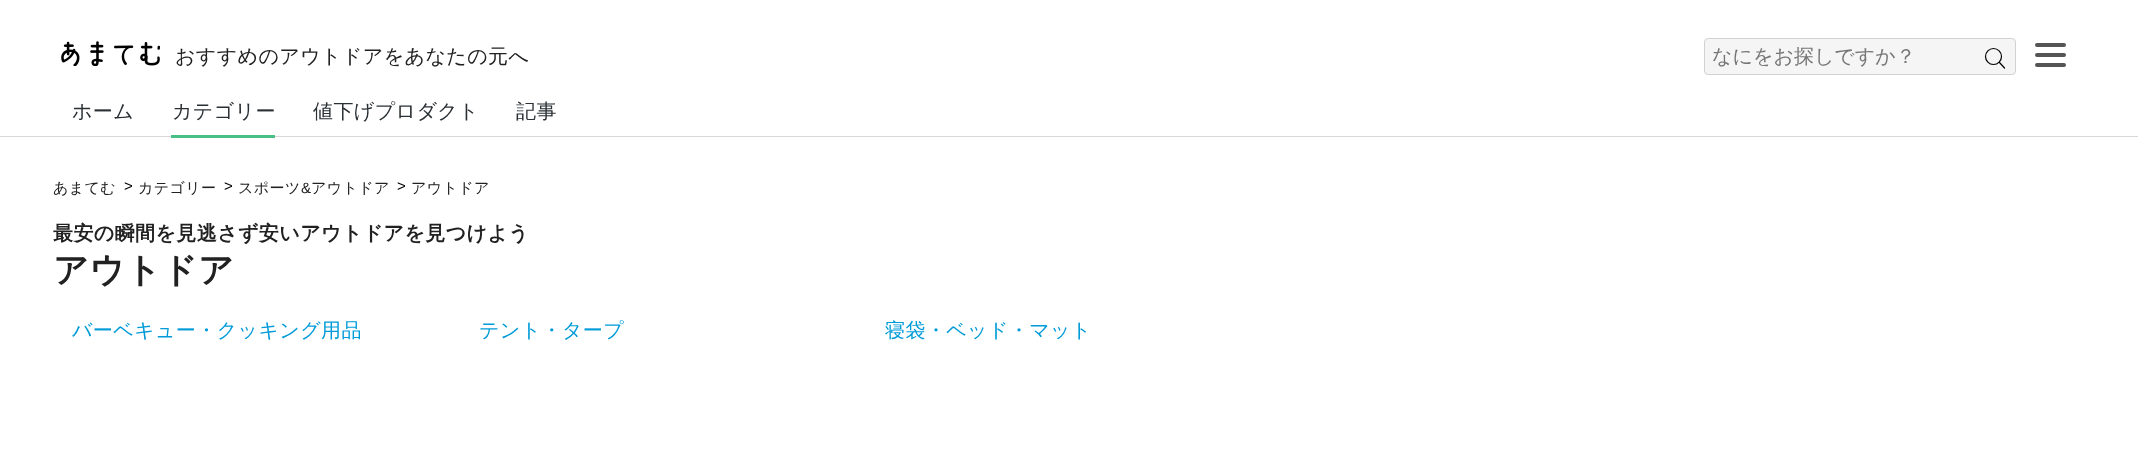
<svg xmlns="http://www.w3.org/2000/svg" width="2138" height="455">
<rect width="100%" height="100%" fill="#fff"/>
<image x="61" y="41" width="99" height="25" href="media/1.png"/>
<text x="175" y="63" style="font-family:WenQuanYi Zen Hei;font-size:20px;font-weight:500;letter-spacing:0.4px;fill:#212121">おすすめのアウトドアをあなたの元へ</text>
<rect x="1704.5" y="38.5" width="311" height="36" rx="3.5" fill="#f5f5f5" stroke="#d2d2d2"/>
<text x="1712" y="63" style="font-family:WenQuanYi Zen Hei;font-size:20px;font-weight:500;fill:#757575">なにをお探しですか？</text>
<circle cx="1993.5" cy="56.5" r="8" fill="none" stroke="#000" stroke-width="1.2"/>
<path d="M1999.5 62.5l5 5.5" fill="none" stroke="#000" stroke-width="1.2" stroke-linecap="round" stroke-linejoin="round"/>
<rect x="2035" y="43" width="31" height="4" rx="2" fill="#555"/>
<rect x="2035" y="53" width="31" height="4" rx="2" fill="#555"/>
<rect x="2035" y="63" width="31" height="4" rx="2" fill="#555"/>
<rect y="136" width="2138" height="1" fill="#d7d7d7"/>
<text x="72" y="118" style="font-family:WenQuanYi Zen Hei;font-size:20px;font-weight:500;letter-spacing:0.4px;fill:#292f33">ホーム</text>
<rect x="171" y="135" width="104" height="3" fill="#48bf84"/>
<text x="172" y="118" style="font-family:WenQuanYi Zen Hei;font-size:20px;font-weight:500;letter-spacing:0.4px;fill:#292f33">カテゴリー</text>
<text x="313" y="118" style="font-family:WenQuanYi Zen Hei;font-size:20px;font-weight:500;letter-spacing:0.4px;fill:#292f33">値下げプロダクト</text>
<text x="516" y="118" style="font-family:WenQuanYi Zen Hei;font-size:20px;font-weight:500;letter-spacing:0.4px;fill:#292f33">記事</text>
<text x="53" y="193" style="font-family:WenQuanYi Zen Hei;font-size:15px;font-weight:500;letter-spacing:0.4px;fill:#212121">あまてむ</text>
<text x="124" y="191" style="font-family:Liberation Sans;font-size:15px;letter-spacing:0.4px;fill:#000">&gt;</text>
<text x="138" y="193" style="font-family:WenQuanYi Zen Hei;font-size:15px;font-weight:500;letter-spacing:0.4px;fill:#212121">カテゴリー</text>
<text x="224" y="191" style="font-family:Liberation Sans;font-size:15px;letter-spacing:0.4px;fill:#000">&gt;</text>
<text x="238" y="193" style="font-family:WenQuanYi Zen Hei;font-size:15px;font-weight:500;letter-spacing:0.4px;fill:#212121">スポーツ</text>
<text x="301" y="193" style="font-family:Liberation Sans;font-size:15px;letter-spacing:0.4px;fill:#212121">&amp;</text>
<text x="311" y="193" style="font-family:WenQuanYi Zen Hei;font-size:15px;font-weight:500;letter-spacing:0.4px;fill:#212121">アウトドア</text>
<text x="397" y="191" style="font-family:Liberation Sans;font-size:15px;letter-spacing:0.4px;fill:#000">&gt;</text>
<text x="411" y="193" style="font-family:WenQuanYi Zen Hei;font-size:15px;font-weight:500;letter-spacing:0.4px;fill:#212121">アウトドア</text>
<text x="53" y="240" style="font-family:WenQuanYi Zen Hei;font-size:20px;font-weight:bold;letter-spacing:0.4px;fill:#212121">最安の瞬間を見逃さず安いアウトドアを見つけよう</text>
<text x="53" y="282" style="font-family:WenQuanYi Zen Hei;font-size:35px;font-weight:bold;letter-spacing:0.4px;fill:#212121">アウトドア</text>
<text x="72" y="337" style="font-family:WenQuanYi Zen Hei;font-size:20px;font-weight:500;letter-spacing:0.4px;fill:#009bd8">バーベキュー・クッキング用品</text>
<text x="479" y="337" style="font-family:WenQuanYi Zen Hei;font-size:20px;font-weight:500;letter-spacing:0.4px;fill:#009bd8">テント・タープ</text>
<text x="885" y="337" style="font-family:WenQuanYi Zen Hei;font-size:20px;font-weight:500;letter-spacing:0.4px;fill:#009bd8">寝袋・ベッド・マット</text>
</svg>
